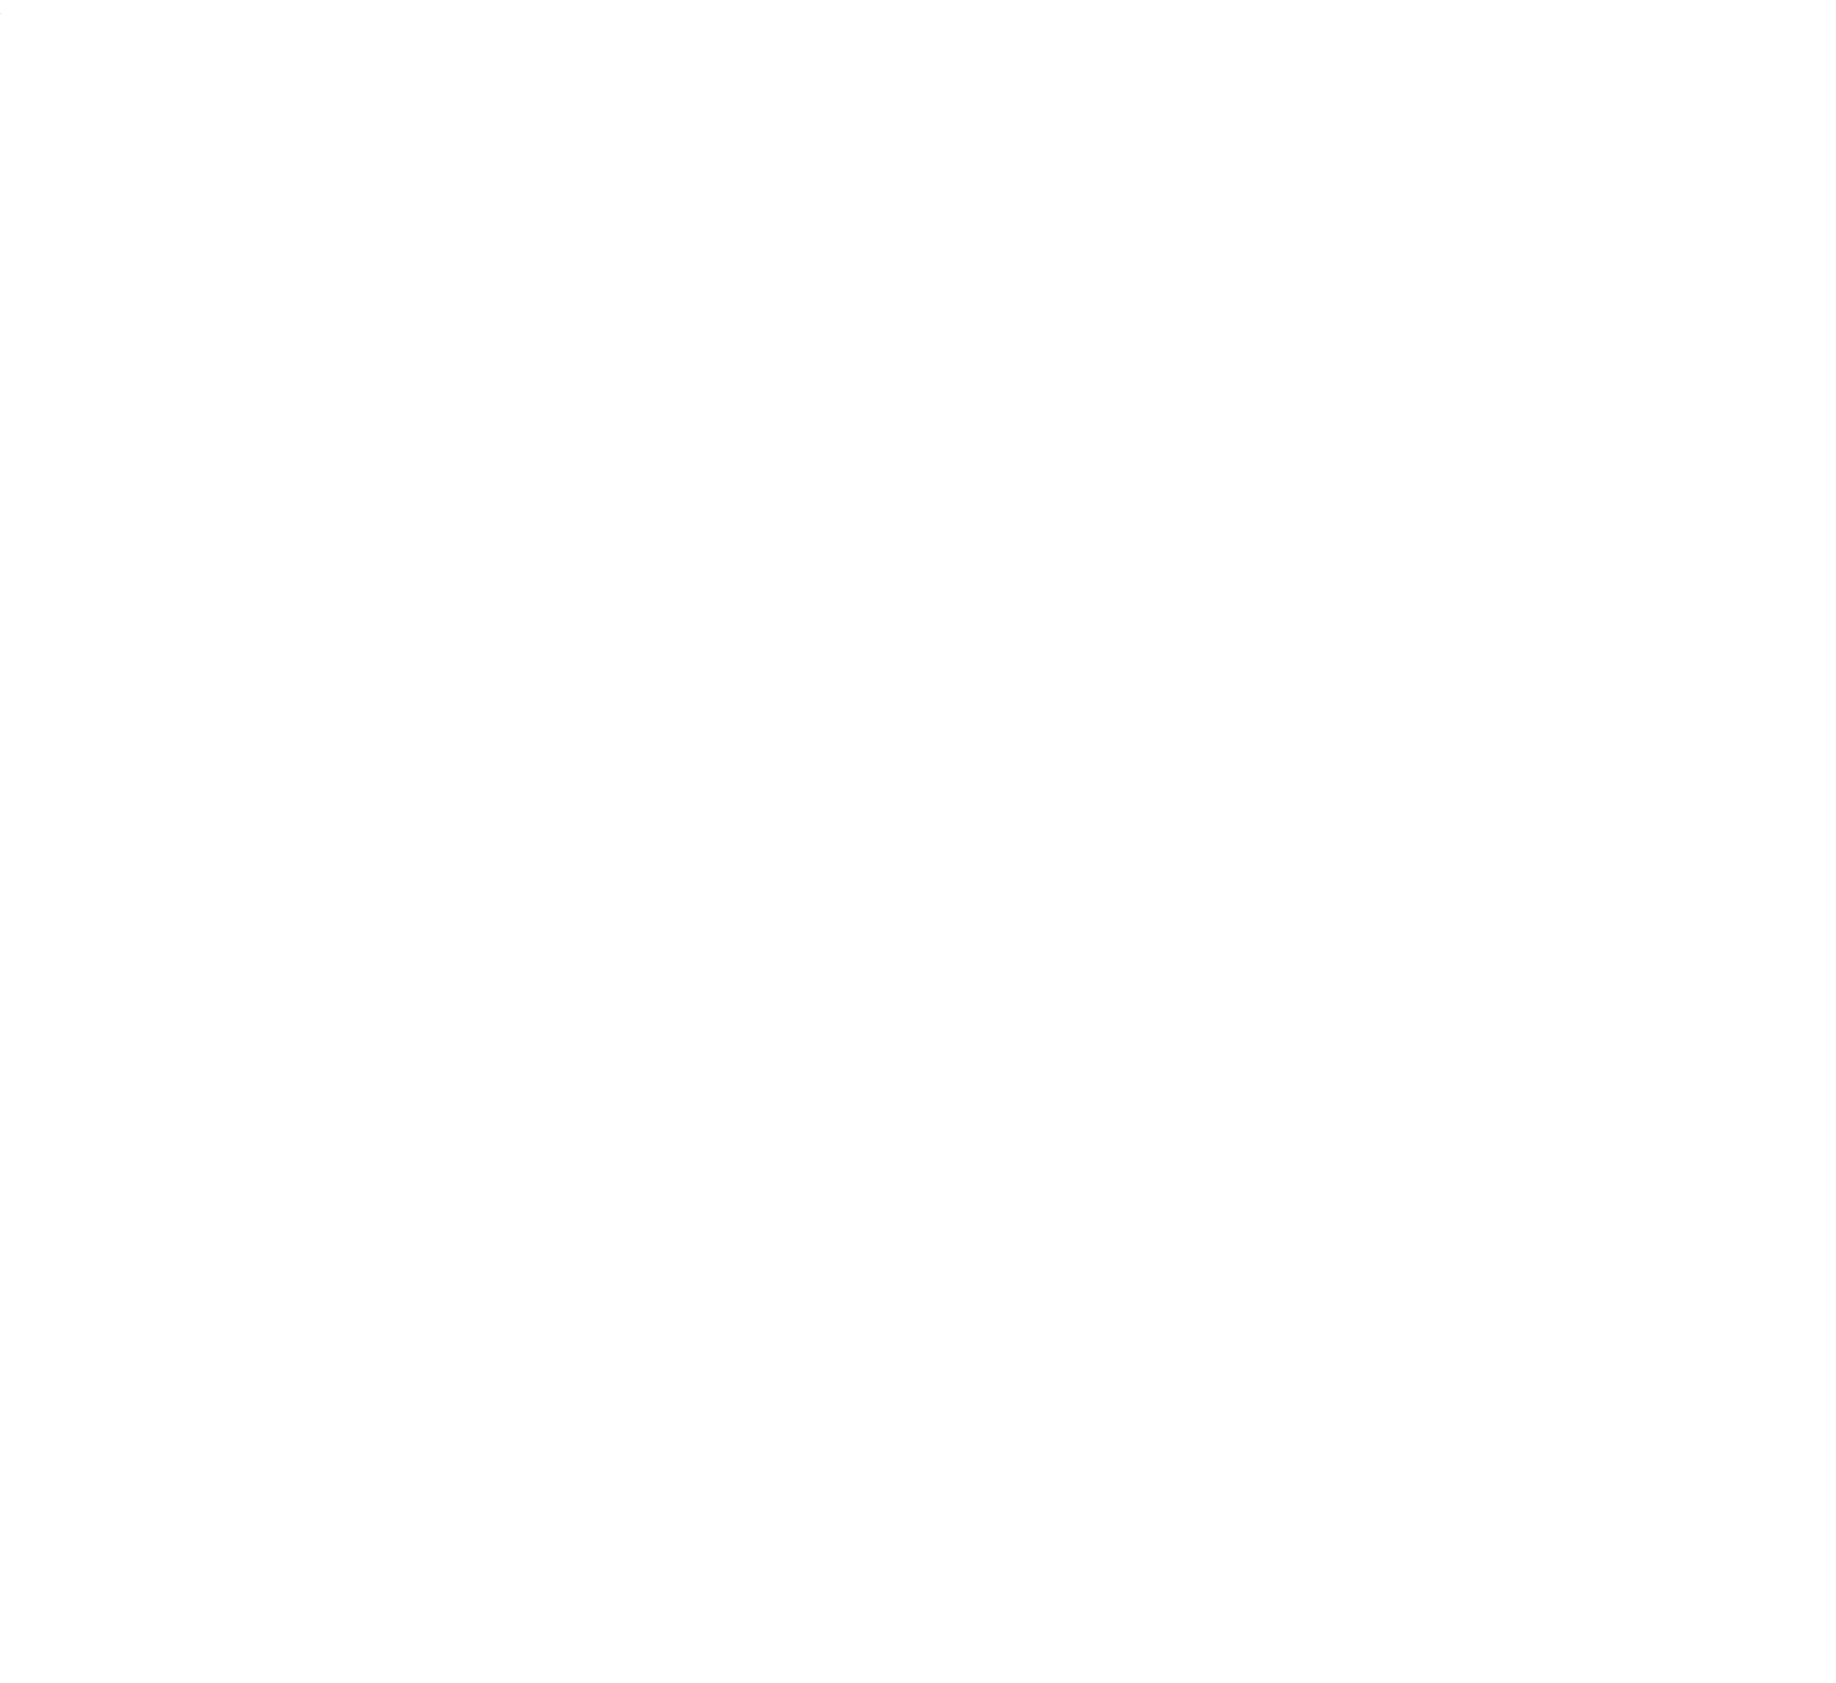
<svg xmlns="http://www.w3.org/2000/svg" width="1836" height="1683">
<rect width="100%" height="100%" fill="#fff"/>
<rect y="13" width="1" height="1" fill="#dee0fa"/>
</svg>
